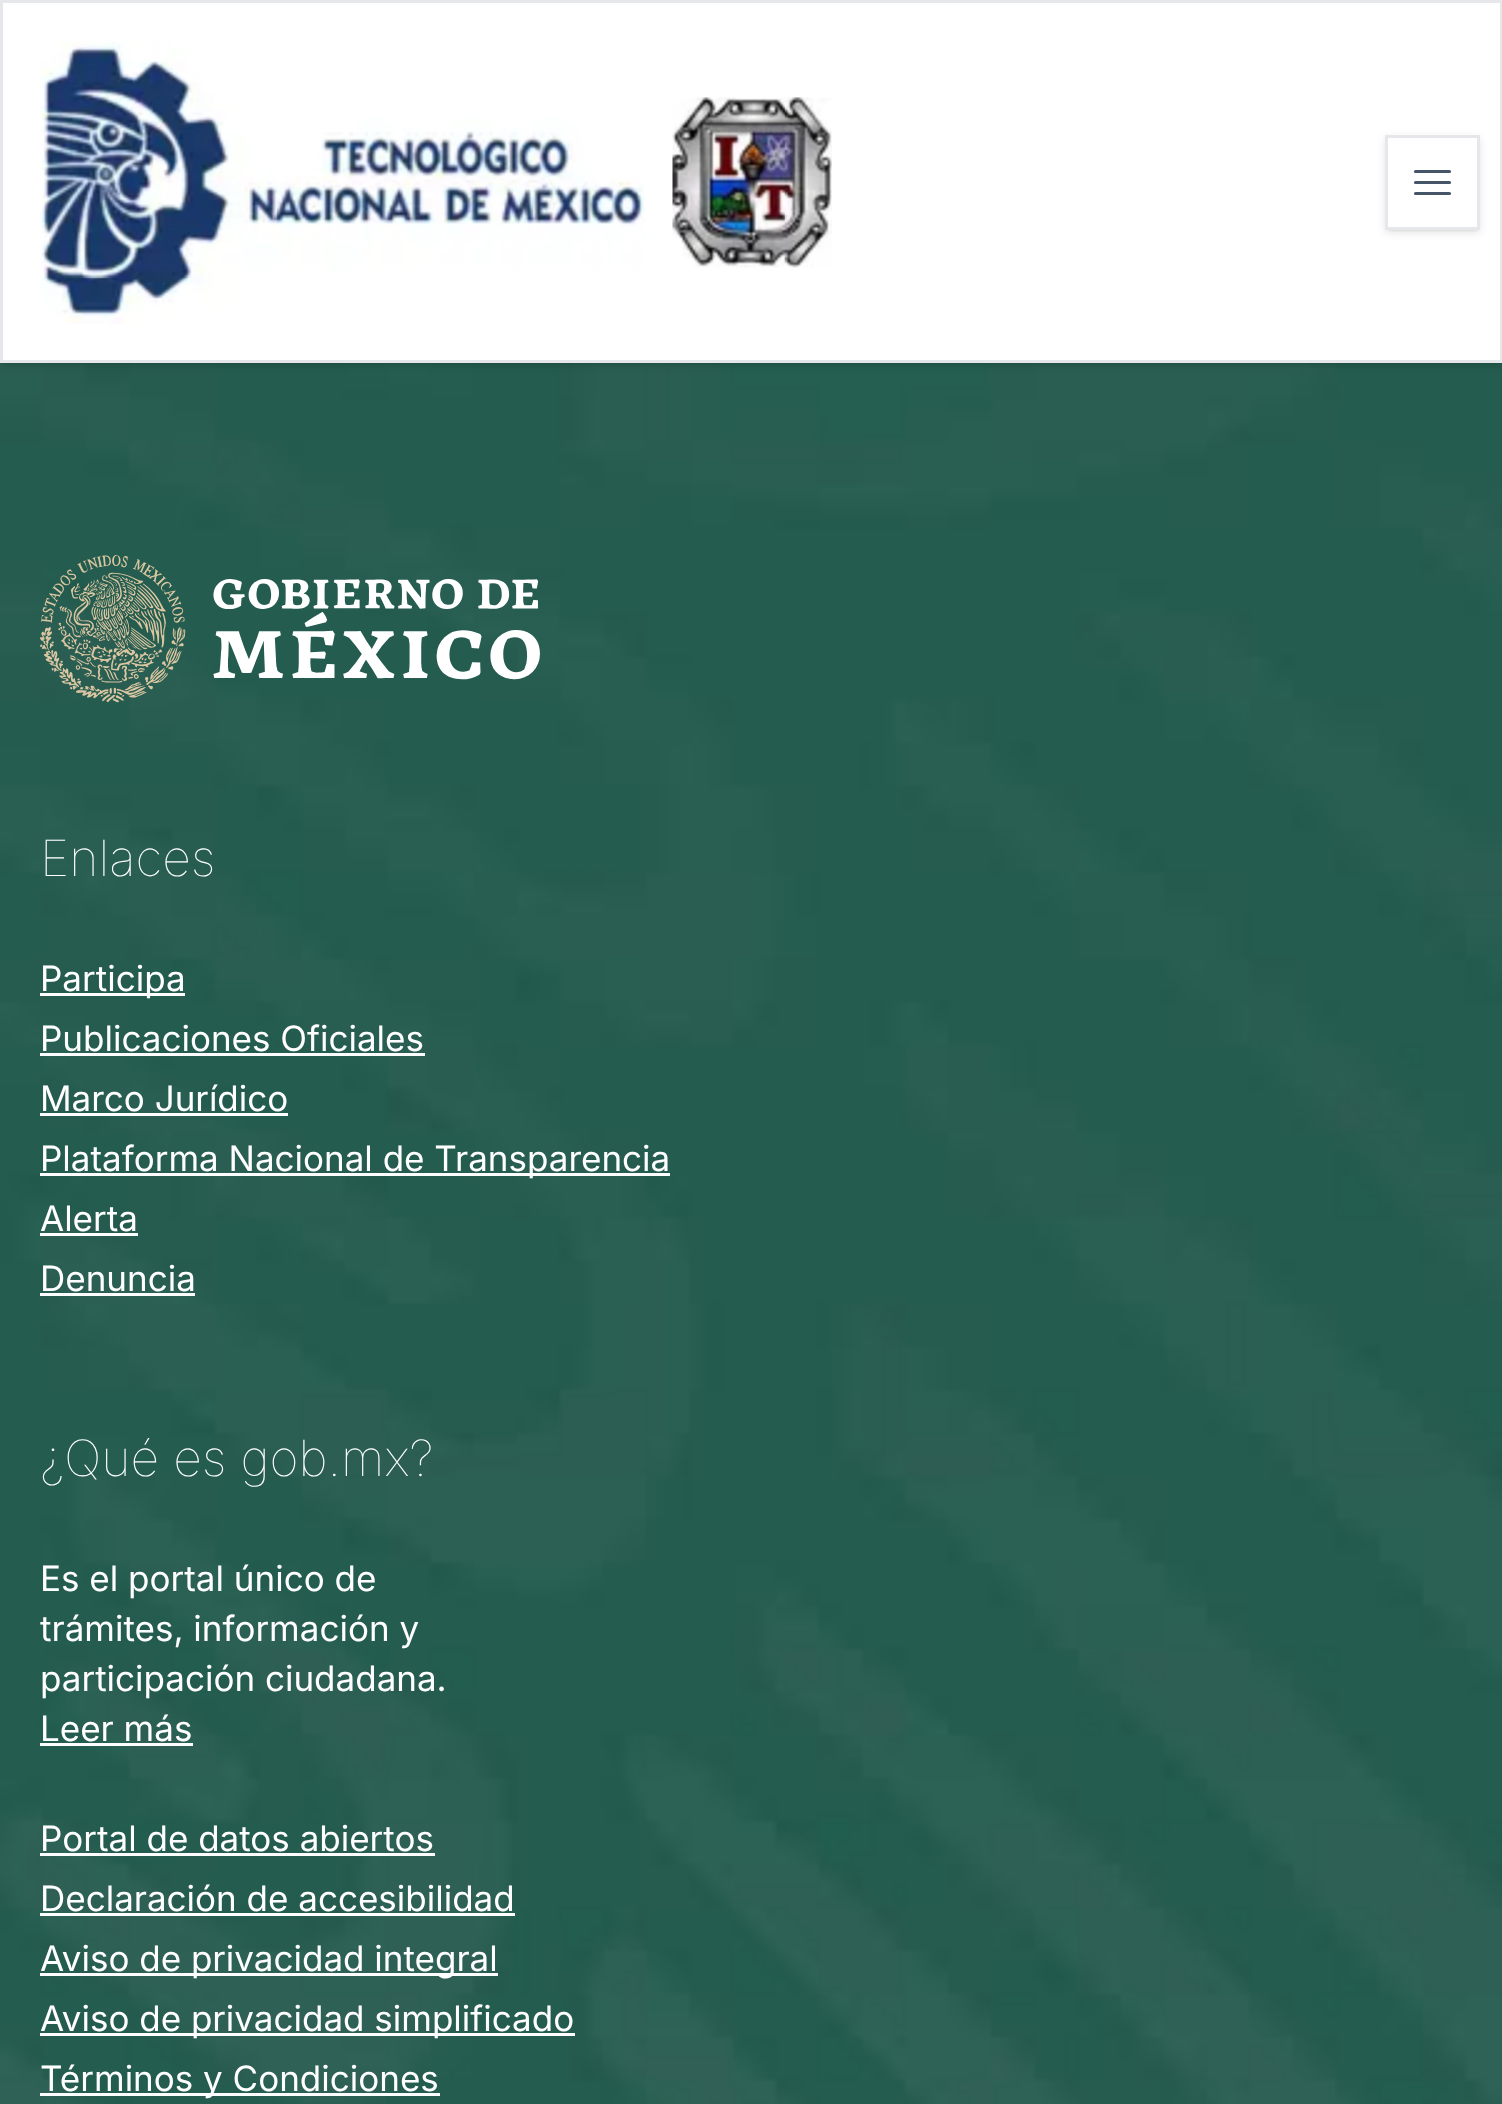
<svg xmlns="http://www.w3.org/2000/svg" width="1502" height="2104">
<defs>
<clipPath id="clip1"><rect x="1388" y="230" width="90" height="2"/></clipPath>
<clipPath id="clip2"><path d="M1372 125h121v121h-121zm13 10h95v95h-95z" clip-rule="evenodd"/></clipPath>
</defs>
<rect width="100%" height="100%" fill="#fff"/>
<image x="0" y="363" width="1502" height="1741" href="media/3.png"/>
<rect x="3" y="5" width="1497" height="358" fill="#0000001a" filter="blur(2.5px)"/>
<rect y="3" width="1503" height="362" fill="#0000001a" filter="blur(4px)"/>
<rect x="1.5" y="1.5" width="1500" height="360" fill="#fff" stroke="#e5e7eb" stroke-width="3"/>
<image x="40" y="41" width="605" height="283" href="media/1.png"/>
<image x="672" y="97" width="160" height="171" href="media/2.png"/>
<g clip-path="url(#clip1)">
<rect x="1388" y="140" width="90" height="90" fill="#0000001a" filter="blur(2.5px)"/>
</g>
<g clip-path="url(#clip2)">
<rect x="1385" y="138" width="95" height="95" fill="#0000001a" filter="blur(4px)"/>
</g>
<rect x="1386.5" y="136.5" width="92" height="92" fill="none" stroke="#e5e7eb" stroke-width="3"/>
<path d="M1415.5 171.5h34m-34 11h34m-34 11h34" fill="none" stroke="#475569" stroke-width="3.1" stroke-linecap="round" stroke-linejoin="round"/>
<image x="40" y="555" width="500" height="148" href="media/4.png"/>
<text x="40" y="876" style="font-family:Inter;font-size:50px;font-weight:100;fill:#fff">Enlaces</text>
<rect x="40" y="993" width="145" height="3" fill="#fff"/>
<text x="40" y="991" style="font-family:Inter;font-size:35px;fill:#fff">Participa</text>
<text x="40" y="1051" style="font-family:Inter;font-size:35px;fill:#fff">Publicaciones Oficiales</text>
<rect x="40" y="1053" width="385" height="3" fill="#fff"/>
<text x="40" y="1111" style="font-family:Inter;font-size:35px;fill:#fff">Marco Jurídico</text>
<rect x="40" y="1113" width="248" height="3" fill="#fff"/>
<rect x="40" y="1173" width="630" height="3" fill="#fff"/>
<text x="40" y="1171" style="font-family:Inter;font-size:35px;fill:#fff">Plataforma Nacional de Transparencia</text>
<text x="40" y="1231" style="font-family:Inter;font-size:35px;fill:#fff">Alerta</text>
<rect x="40" y="1233" width="98" height="3" fill="#fff"/>
<text x="40" y="1291" style="font-family:Inter;font-size:35px;fill:#fff">Denuncia</text>
<rect x="40" y="1293" width="155" height="3" fill="#fff"/>
<text x="40" y="1476" style="font-family:Inter;font-size:50px;font-weight:100;fill:#fff">¿Qué es gob.mx?</text>
<text x="40" y="1591" style="font-family:Inter;font-size:35px;fill:#fff">Es el portal único de</text>
<text x="40" y="1641" style="font-family:Inter;font-size:35px;fill:#fff">trámites, información y</text>
<text x="40" y="1691" style="font-family:Inter;font-size:35px;fill:#fff">participación ciudadana.</text>
<text x="40" y="1741" style="font-family:Inter;font-size:35px;fill:#fff">Leer más</text>
<rect x="40" y="1743" width="153" height="3" fill="#fff"/>
<text x="40" y="1851" style="font-family:Inter;font-size:35px;fill:#fff">Portal de datos abiertos</text>
<rect x="40" y="1853" width="395" height="3" fill="#fff"/>
<text x="40" y="1911" style="font-family:Inter;font-size:35px;fill:#fff">Declaración de accesibilidad</text>
<rect x="40" y="1913" width="475" height="3" fill="#fff"/>
<rect x="40" y="1973" width="458" height="3" fill="#fff"/>
<text x="40" y="1971" style="font-family:Inter;font-size:35px;fill:#fff">Aviso de privacidad integral</text>
<rect x="40" y="2033" width="535" height="3" fill="#fff"/>
<text x="40" y="2031" style="font-family:Inter;font-size:35px;fill:#fff">Aviso de privacidad simplificado</text>
<rect x="40" y="2093" width="400" height="3" fill="#fff"/>
<text x="40" y="2091" style="font-family:Inter;font-size:35px;fill:#fff">Términos y Condiciones</text>
</svg>
